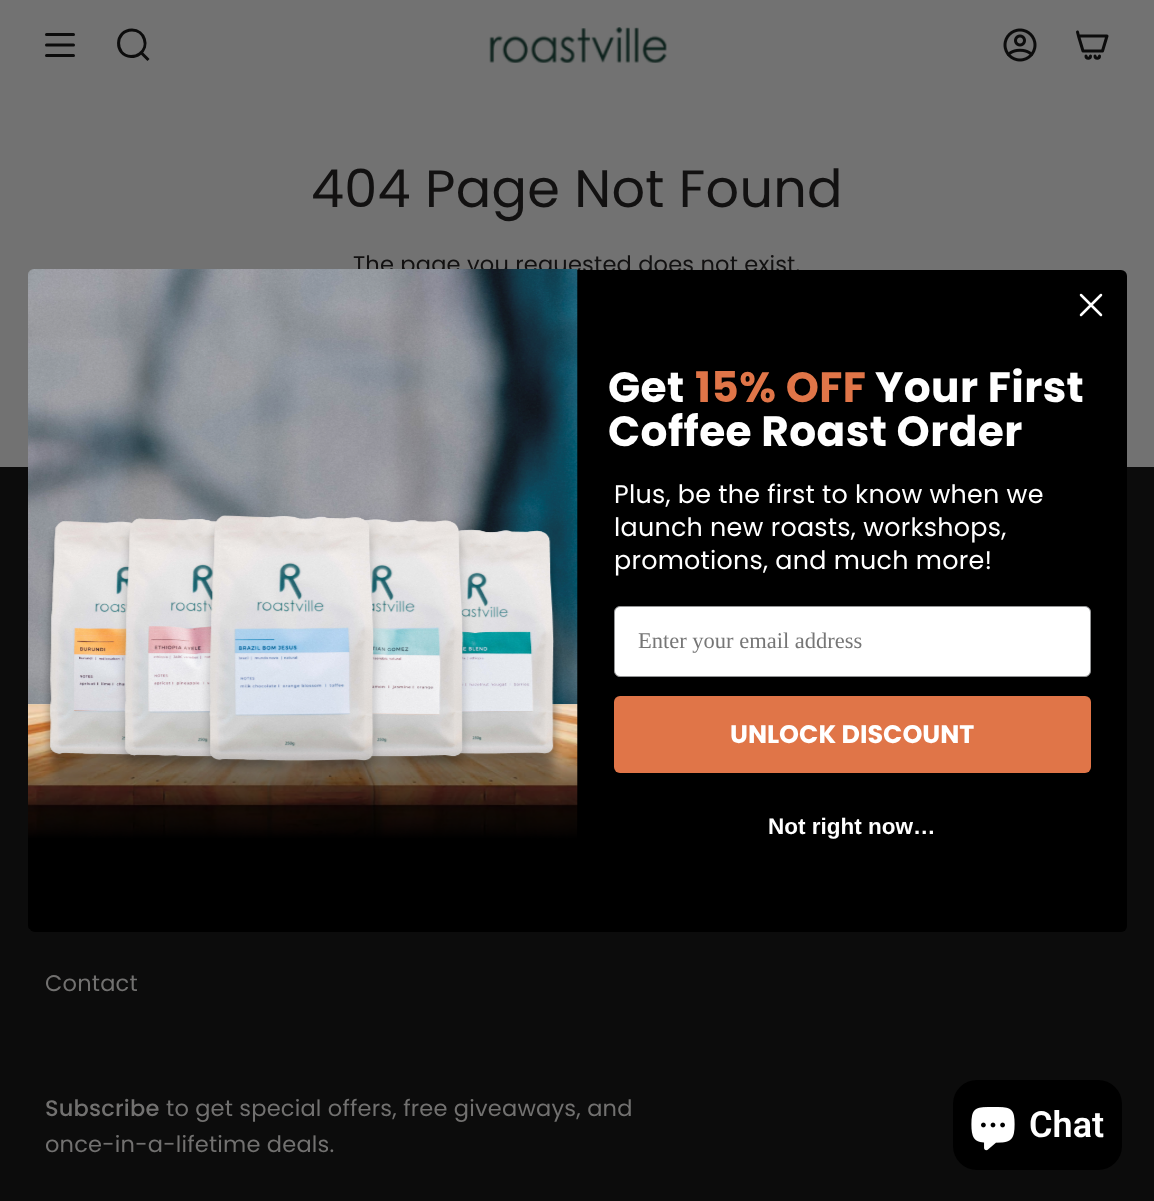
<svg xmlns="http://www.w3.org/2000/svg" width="1154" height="1201">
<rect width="100%" height="100%" fill="#727272"/>
<path d="M46.5 34.5h27m-27 10.5h27m-27 10.5h27" fill="none" stroke="#0c0c0c" stroke-width="3" stroke-linecap="round" stroke-linejoin="round"/>
<path d="M132 30c12.5 0 18 16.5 7.5 24c-2.5 2-5.5 2.5-8.5 2.5c-17-.5-16.5-26.5 1-26.5zm9 22.5l7.5 7.5" fill="none" stroke="#0c0c0c" stroke-width="3"/>
<image x="489" y="27" width="178" height="36" href="media/1.png"/>
<image x="1003" y="28" width="34" height="34" href="media/2.png"/>
<path d="M1078.5 36h28.5l-4.5 15h-19.5zm0 0l-1-4m13 24c0 3-4.5 3-4.5 0m13.5 0c0 3-4.5 3-4.5 0" fill="none" stroke="#0c0c0c" stroke-width="3" stroke-linecap="round" stroke-linejoin="round"/>
<text x="311" y="207" style="font-family:Poppins;font-size:52.5px;letter-spacing:0.25px;fill:#121111">404 Page Not Found</text>
<text x="353" y="272" style="font-family:Poppins;font-size:22.5px;letter-spacing:0.2px;fill:#121111">The page you requested does not exist.</text>
<rect y="467" width="1154" height="734" fill="#0c0c0c"/>
<rect x="29" y="270" width="1098" height="662" rx="6" fill="#000"/>
<path d="M1081 295l20 20m-20 0l20-20z" fill="none" stroke="#fff" stroke-width="2.5" stroke-linecap="round" stroke-linejoin="round"/>
<image x="28" y="269" width="550" height="660" href="media/3.png"/>
<text x="608" y="402" style="font-family:Poppins;font-size:42.25px;font-weight:bold;letter-spacing:0.4px;fill:#fff">Get</text>
<text x="695" y="402" style="font-family:Poppins;font-size:42.25px;font-weight:bold;letter-spacing:0.4px;fill:#e07548">15% OFF</text>
<text x="875" y="402" style="font-family:Poppins;font-size:42.25px;font-weight:bold;letter-spacing:0.4px;fill:#fff">Your First</text>
<text x="608" y="446" style="font-family:Poppins;font-size:42.25px;font-weight:bold;letter-spacing:0.4px;fill:#fff">Coffee Roast Order</text>
<text x="614" y="503" style="font-family:Poppins;font-size:25.4px;letter-spacing:0.25px;fill:#fff">Plus, be the first to know when we</text>
<text x="614" y="536" style="font-family:Poppins;font-size:25.4px;letter-spacing:0.25px;fill:#fff">launch new roasts, workshops,</text>
<text x="614" y="569" style="font-family:Poppins;font-size:25.4px;letter-spacing:0.25px;fill:#fff">promotions, and much more!</text>
<rect x="614.5" y="606.5" width="476" height="70" rx="5.5" fill="#fff" stroke="#949596"/>
<text x="638" y="648" style="font-family:Liberation Serif;font-size:22.5px;fill:#767676">Enter your email address</text>
<rect x="614" y="696" width="477" height="77" rx="6" fill="#e07548"/>
<text x="730" y="743" style="font-family:Poppins;font-size:25.4px;font-weight:bold;fill:#fff">UNLOCK DISCOUNT</text>
<text x="768" y="834" style="font-family:Liberation Sans;font-size:22.5px;font-weight:bold;fill:#fff">Not right now…</text>
<text x="45" y="991" style="font-family:Poppins;font-size:22.5px;letter-spacing:0.2px;fill:#727170">Contact</text>
<text x="45" y="1116" style="font-family:Poppins;font-size:22.5px;font-weight:500;letter-spacing:0.2px;fill:#727170">Subscribe</text>
<text x="166" y="1116" style="font-family:Poppins;font-size:22.5px;letter-spacing:0.2px;fill:#727170">to get special offers, free giveaways, and</text>
<text x="45" y="1152" style="font-family:Poppins;font-size:22.5px;letter-spacing:0.2px;fill:#727170">once-in-a-lifetime deals.</text>
<rect x="953" y="1080" width="169" height="90" rx="24" fill="#000"/>
<image x="971" y="1107" width="44" height="44" href="media/4.png"/>
<text x="1029" y="1137" style="font-family:Roboto;font-size:36px;font-weight:600;fill:#fff">Chat</text>
</svg>
